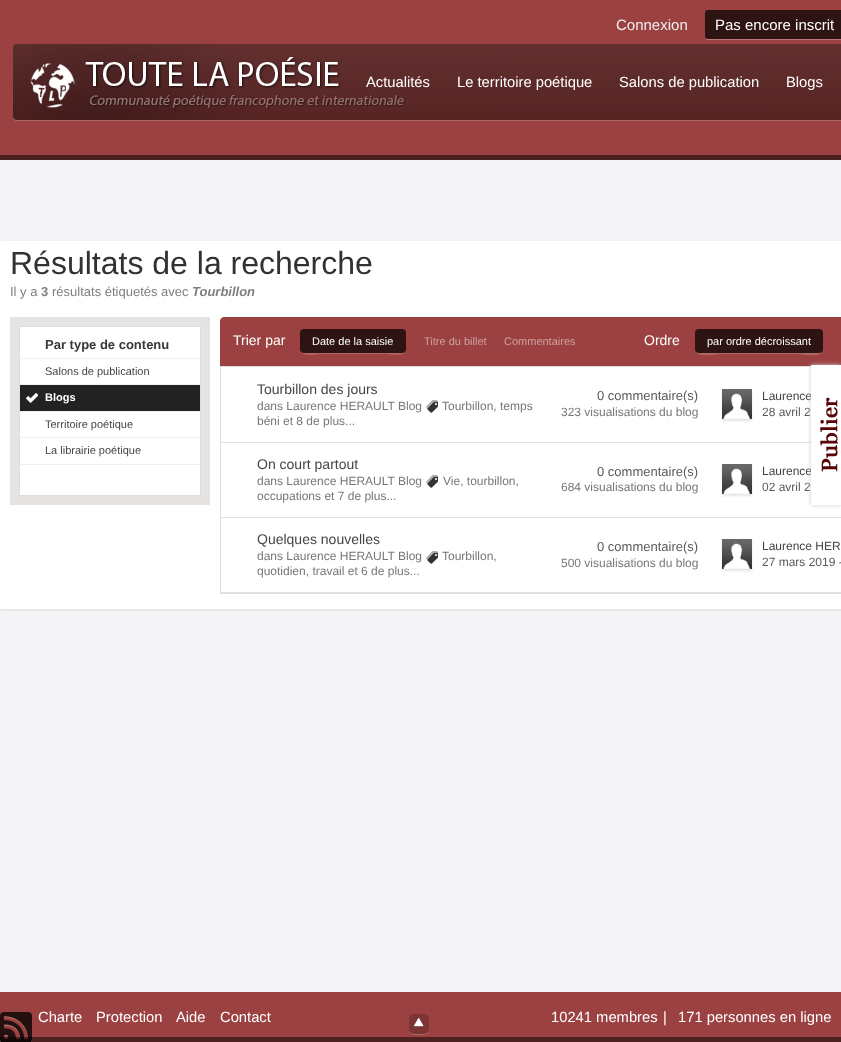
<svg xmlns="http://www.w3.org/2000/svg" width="841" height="1042">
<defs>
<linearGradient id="g1" gradientUnits="userSpaceOnUse" x1="501" y1="44" x2="501" y2="120"><stop offset="0" stop-color="#1a1a1a" stop-opacity="0.44"/><stop offset="1" stop-color="#000" stop-opacity="0.44"/></linearGradient>
</defs>
<rect width="100%" height="100%" fill="#f4f4f6"/>
<rect width="841" height="155" fill="#9c4141"/>
<rect y="155" width="841" height="5" fill="#4e2121"/>
<text x="616" y="30" style="font-family:Liberation Sans;font-size:15px;fill:#eee">Connexion</text>
<path d="M705 36v1c0 2 1 3 3 3h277c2 0 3-1 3-3v-1c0 2-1 3-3 3h-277c-2 0-3-1-3-3z" fill="#ba7a7a"/>
<rect x="705" y="10" width="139" height="29" rx="3" fill="#000000b3"/>
<text x="715" y="30" style="font-family:Liberation Sans;font-size:15px;fill:#fff">Pas encore inscrit</text>
<path d="M13 116c0 3 1 5 4 5h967c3 0 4-2 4-5c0 2-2 4-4 4h-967c-2 0-4-2-4-4z" fill="#b06767"/>
<rect x="13" y="44" width="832" height="76" rx="4" fill="url(#g1)"/>
<image x="13" y="44" width="393" height="76" href="media/1.png"/>
<text x="366" y="87" style="font-family:Liberation Sans;font-size:14.75px;fill:#fff">Actualités</text>
<text x="457" y="87" style="font-family:Liberation Sans;font-size:14.75px;fill:#fff">Le territoire poétique</text>
<text x="619" y="87" style="font-family:Liberation Sans;font-size:14.75px;fill:#fff">Salons de publication</text>
<text x="786" y="87" style="font-family:Liberation Sans;font-size:14.75px;fill:#fff">Blogs</text>
<rect y="242" width="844" height="368" fill="#dbdbdb" filter="blur(1px)"/>
<rect y="241" width="841" height="368" fill="#fff"/>
<text x="10" y="274" style="font-family:Liberation Sans;font-size:32px;fill:#323232">Résultats de la recherche</text>
<text x="10" y="296" style="font-family:Liberation Sans;font-size:13px;fill:#7f7f7f">Il y a</text>
<text x="41" y="296" style="font-family:Liberation Sans;font-size:13px;font-weight:bold;fill:#7f7f7f">3</text>
<text x="52" y="296" style="font-family:Liberation Sans;font-size:13px;fill:#7f7f7f">résultats étiquetés avec</text>
<text x="192" y="296" style="font-family:Liberation Sans;font-size:13px;font-weight:bold;font-style:italic;fill:#7f7f7f">Tourbillon</text>
<rect x="10" y="317" width="200" height="188" fill="#e5e4e3"/>
<rect x="19.5" y="326.5" width="181" height="169" fill="#fff" stroke="#ddd"/>
<text x="45" y="349" style="font-family:Liberation Sans;font-size:13px;font-weight:bold;fill:#383838">Par type de contenu</text>
<rect x="20" y="358" width="180" height="1" fill="#edf1f5"/>
<rect x="20" y="384" width="180" height="1" fill="#edf1f5"/>
<text x="45" y="375" style="font-family:Liberation Sans;font-size:11px;fill:#454545">Salons de publication</text>
<rect x="20" y="411" width="180" height="1" fill="#edf1f5"/>
<rect x="20" y="385" width="180" height="26" fill="#222"/>
<image x="26" y="393" width="12" height="10" href="media/2.png"/>
<text x="45" y="401" style="font-family:Liberation Sans;font-size:11px;font-weight:bold;fill:#fff">Blogs</text>
<rect x="20" y="437" width="180" height="1" fill="#edf1f5"/>
<text x="45" y="428" style="font-family:Liberation Sans;font-size:11px;fill:#454545">Territoire poétique</text>
<rect x="20" y="464" width="180" height="1" fill="#edf1f5"/>
<text x="45" y="454" style="font-family:Liberation Sans;font-size:11px;fill:#454545">La librairie poétique</text>
<path d="M224 317h617c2 0 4 2 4 4v45h-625v-45c0-2 2-4 4-4z" fill="#9c4141"/>
<text x="233" y="345" style="font-family:Liberation Sans;font-size:14px;fill:#fff">Trier par</text>
<path d="M300 349c0 9 16 5 20 5h66c4 0 20 4 20-5c0 2-2 4-4 4h-98c-2 0-4-2-4-4z" fill="#b06767"/>
<rect x="300" y="329" width="106" height="24" rx="4" fill="#000000b3"/>
<text x="312" y="345" style="font-family:Liberation Sans;font-size:11px;fill:#fff">Date de la saisie</text>
<text x="424" y="345" style="font-family:Liberation Sans;font-size:11px;fill:#cea0a0">Titre du billet</text>
<text x="504" y="345" style="font-family:Liberation Sans;font-size:11px;fill:#cea0a0">Commentaires</text>
<text x="644" y="345" style="font-family:Liberation Sans;font-size:14px;fill:#fff">Ordre</text>
<path d="M695 349c0 10 22 5 24 5h80c2 0 24 5 24-5c0 2-2 4-4 4h-120c-2 0-4-2-4-4z" fill="#b06767"/>
<rect x="695" y="329" width="128" height="24" rx="4" fill="#000000b3"/>
<text x="707" y="345" style="font-family:Liberation Sans;font-size:11px;fill:#fff">par ordre décroissant</text>
<rect x="220.5" y="366.5" width="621" height="227" fill="none" stroke="#ddd"/>
<text x="257" y="394" style="font-family:Liberation Sans;font-size:14px;fill:#454545">Tourbillon des jours</text>
<text x="257" y="410" style="font-family:Liberation Sans;font-size:12px;fill:#777">dans Laurence HERAULT Blog</text>
<image x="426" y="400" width="12" height="13" href="media/3.png"/>
<text x="442" y="410" style="font-family:Liberation Sans;font-size:12px;fill:#777">Tourbillon, temps</text>
<text x="257" y="425" style="font-family:Liberation Sans;font-size:12px;fill:#777">béni et 8 de plus...</text>
<text x="597" y="400" style="font-family:Liberation Sans;font-size:13px;fill:#5a5a5a">0 commentaire(s)</text>
<text x="561" y="416" style="font-family:Liberation Sans;font-size:12px;fill:#777">323 visualisations du blog</text>
<rect x="221" y="442" width="590" height="1" fill="#e1e1e1"/>
<rect x="722" y="391" width="30" height="30" fill="#0000001a" filter="blur(1px)"/>
<image x="722" y="389" width="30" height="30" href="media/4.png"/>
<text x="762" y="400" style="font-family:Liberation Sans;font-size:12px;fill:#454545">Laurence</text>
<text x="762" y="416" style="font-family:Liberation Sans;font-size:12px;fill:#5a5a5a">28 avril 2</text>
<text x="257" y="469" style="font-family:Liberation Sans;font-size:14px;fill:#454545">On court partout</text>
<text x="257" y="485" style="font-family:Liberation Sans;font-size:12px;fill:#777">dans Laurence HERAULT Blog</text>
<image x="426" y="475" width="12" height="13" href="media/3.png"/>
<text x="443" y="485" style="font-family:Liberation Sans;font-size:12px;fill:#777">Vie, tourbillon,</text>
<text x="257" y="500" style="font-family:Liberation Sans;font-size:12px;fill:#777">occupations et 7 de plus...</text>
<text x="597" y="476" style="font-family:Liberation Sans;font-size:13px;fill:#5a5a5a">0 commentaire(s)</text>
<text x="561" y="491" style="font-family:Liberation Sans;font-size:12px;fill:#777">684 visualisations du blog</text>
<rect x="221" y="517" width="620" height="1" fill="#e1e1e1"/>
<rect x="722" y="466" width="30" height="30" fill="#0000001a" filter="blur(1px)"/>
<image x="722" y="464" width="30" height="30" href="media/4.png"/>
<text x="762" y="475" style="font-family:Liberation Sans;font-size:12px;fill:#454545">Laurence</text>
<text x="762" y="491" style="font-family:Liberation Sans;font-size:12px;fill:#5a5a5a">02 avril 2</text>
<text x="257" y="544" style="font-family:Liberation Sans;font-size:14px;fill:#454545">Quelques nouvelles</text>
<text x="257" y="560" style="font-family:Liberation Sans;font-size:12px;fill:#777">dans Laurence HERAULT Blog</text>
<image x="426" y="551" width="12" height="13" href="media/3.png"/>
<text x="442" y="560" style="font-family:Liberation Sans;font-size:12px;fill:#777">Tourbillon,</text>
<text x="257" y="575" style="font-family:Liberation Sans;font-size:12px;fill:#777">quotidien, travail et 6 de plus...</text>
<text x="597" y="551" style="font-family:Liberation Sans;font-size:13px;fill:#5a5a5a">0 commentaire(s)</text>
<text x="561" y="567" style="font-family:Liberation Sans;font-size:12px;fill:#777">500 visualisations du blog</text>
<rect x="221" y="592" width="620" height="1" fill="#e1e1e1"/>
<rect x="722" y="541" width="30" height="30" fill="#0000001a" filter="blur(1px)"/>
<image x="722" y="539" width="30" height="30" href="media/5.png"/>
<text x="762" y="550" style="font-family:Liberation Sans;font-size:12px;fill:#454545">Laurence HER</text>
<text x="762" y="566" style="font-family:Liberation Sans;font-size:12px;fill:#5a5a5a">27 mars 2019 -</text>
<rect x="811" y="365" width="30" height="140" fill="#ccc" filter="blur(2px)"/>
<rect x="811" y="365" width="30" height="140" fill="#fff"/>
<image x="820" y="397" width="18" height="75" href="media/6.png"/>
<rect y="992" width="841" height="45" fill="#9c4141"/>
<rect y="1037" width="841" height="5" fill="#4e2121"/>
<image x="0" y="1012" width="32" height="30" href="media/7.png"/>
<text x="38" y="1022" style="font-family:Liberation Sans;font-size:14.75px;fill:#fff">Charte</text>
<text x="96" y="1022" style="font-family:Liberation Sans;font-size:14.75px;fill:#fff">Protection</text>
<text x="176" y="1022" style="font-family:Liberation Sans;font-size:14.75px;fill:#fff">Aide</text>
<text x="220" y="1022" style="font-family:Liberation Sans;font-size:14.75px;fill:#fff">Contact</text>
<path d="M409 1029c0 6.5 5 6 10 6c5 0 10 .5 10-6c0 5.5-6 5-10 5c-4 0-10 .5-10-5z" fill="#b06767"/>
<rect x="409" y="1014" width="20" height="20" rx="5" fill="#00000033"/>
<image x="414" y="1018" width="10" height="9" href="media/8.png"/>
<text x="551" y="1022" style="font-family:Liberation Sans;font-size:14.75px;fill:#fff">10241 membres</text>
<text x="663" y="1022" style="font-family:Liberation Sans;font-size:14.75px;fill:#fff">|</text>
<text x="678" y="1022" style="font-family:Liberation Sans;font-size:14.75px;fill:#fff">171 personnes en ligne</text>
</svg>
